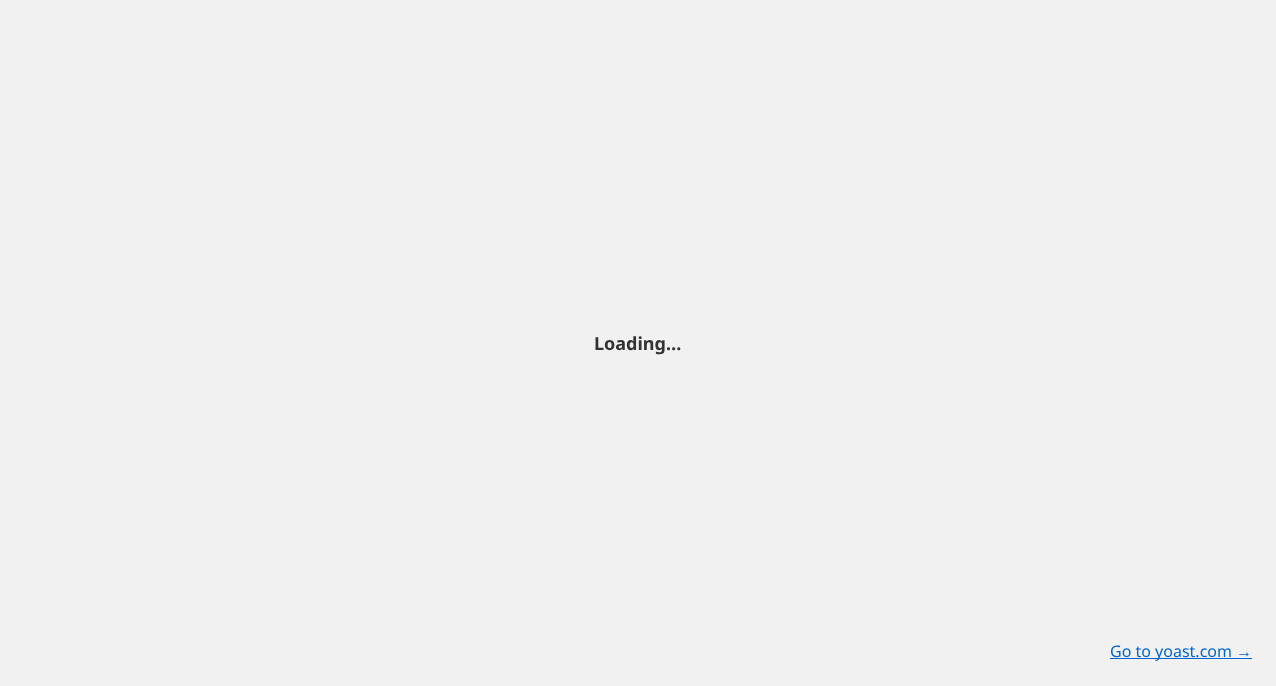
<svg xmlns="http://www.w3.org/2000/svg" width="1276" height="686">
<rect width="100%" height="100%" fill="#f1f1f1"/>
<text x="594" y="350" style="font-family:Noto Sans;font-size:18px;font-weight:bold;fill:#333">Loading…</text>
<rect x="1110" y="658" width="142" height="1" fill="#0066cd"/>
<text x="1110" y="657" style="font-family:Noto Sans;font-size:16px;fill:#0066cd">Go to yoast.com</text>
<text x="1236" y="657" style="font-family:Liberation Sans;font-size:16px;fill:#0066cd">→</text>
</svg>
